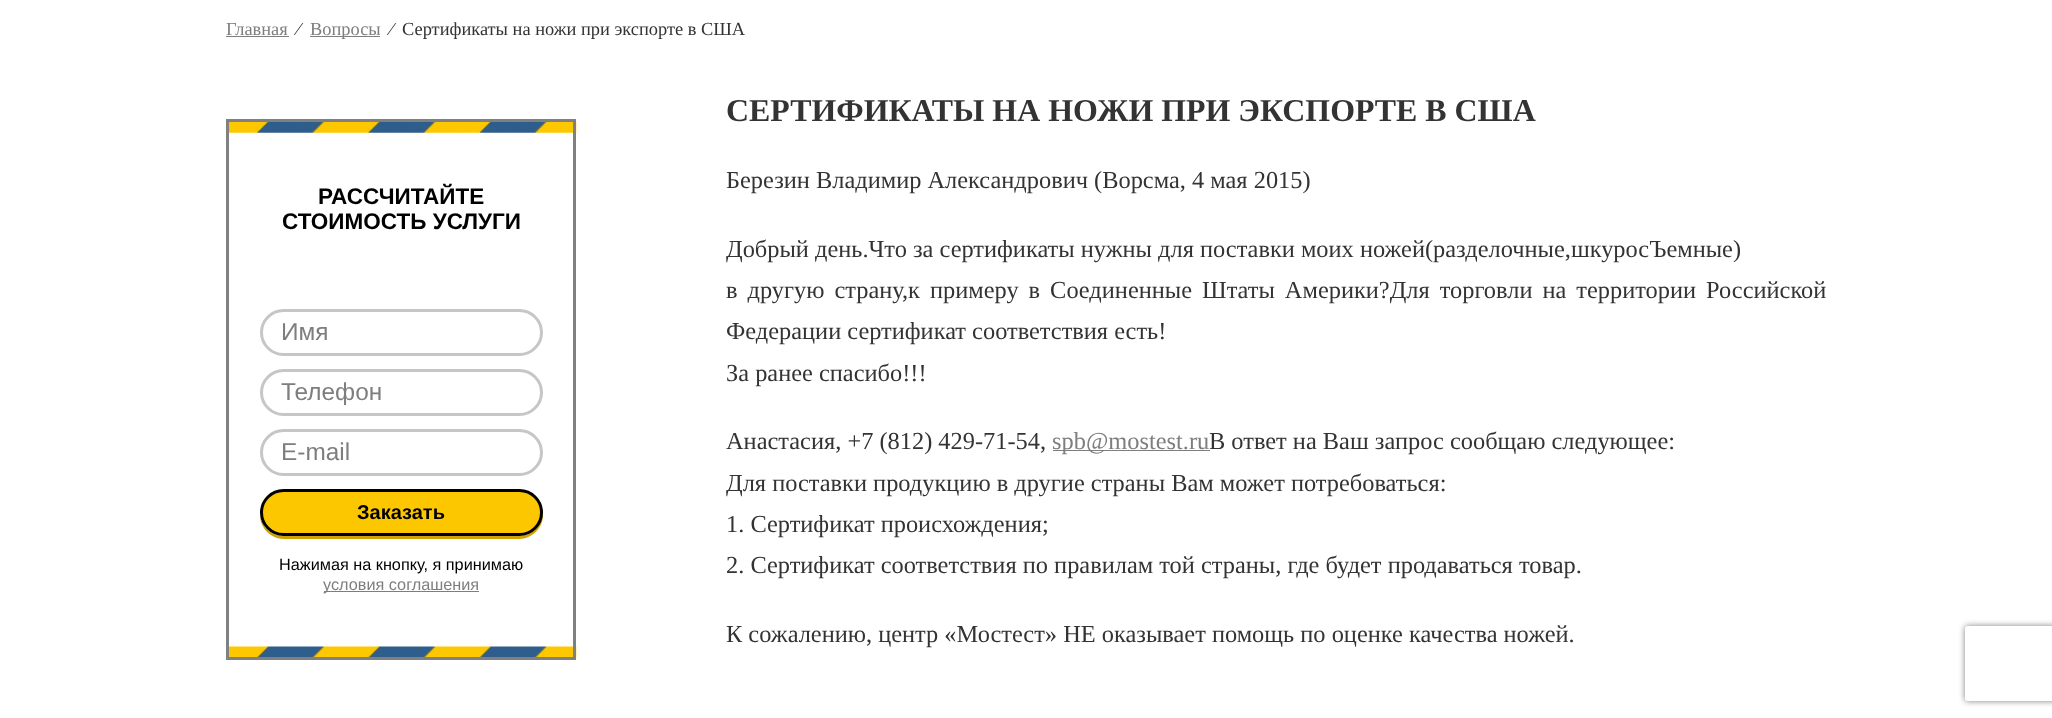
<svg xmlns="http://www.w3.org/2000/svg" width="2052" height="718">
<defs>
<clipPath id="clip1"><path d="M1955 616h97v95h-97zm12.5 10h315c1.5 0 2.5 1 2.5 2.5v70c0 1.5-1 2.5-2.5 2.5h-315c-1.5 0-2.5-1-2.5-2.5v-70c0-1.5 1-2.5 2.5-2.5z" clip-rule="evenodd"/></clipPath>
</defs>
<rect width="100%" height="100%" fill="#fff"/>
<text x="226" y="35" style="font-family:Liberation Serif;font-size:18.4px;fill:#7e7e7e">Главная</text>
<rect x="226" y="36" width="63" height="1" fill="#7e7e7e"/>
<text x="297" y="35" style="font-family:Liberation Serif;font-size:18.4px;fill:#333">⁄</text>
<rect x="310" y="36" width="70" height="1" fill="#7e7e7e"/>
<text x="310" y="35" style="font-family:Liberation Serif;font-size:18.4px;fill:#7e7e7e">Вопросы</text>
<text x="390" y="35" style="font-family:Liberation Serif;font-size:18.4px;fill:#333">⁄</text>
<text x="402" y="35" style="font-family:Liberation Serif;font-size:18.4px;fill:#333">Сертификаты на ножи при экспорте в США</text>
<image x="229" y="121" width="348" height="537" href="media/1.png"/>
<rect x="227.5" y="120.5" width="347" height="538" fill="none" stroke="#808080" stroke-width="3"/>
<text x="318" y="204" style="font-family:Liberation Sans;font-size:22.5px;font-weight:bold;fill:#000">РАССЧИТАЙТЕ</text>
<text x="282" y="229" style="font-family:Liberation Sans;font-size:22.5px;font-weight:bold;fill:#000">СТОИМОСТЬ УСЛУГИ</text>
<rect x="261.5" y="310.5" width="280" height="44" rx="22" fill="none" stroke="#c7c6c6" stroke-width="3"/>
<text x="281" y="340" style="font-family:Liberation Sans;font-size:24.4px;fill:#7e7e7e">Имя</text>
<rect x="261.5" y="370.5" width="280" height="44" rx="22" fill="none" stroke="#c7c6c6" stroke-width="3"/>
<text x="281" y="400" style="font-family:Liberation Sans;font-size:24.4px;fill:#7e7e7e">Телефон</text>
<rect x="261.5" y="430.5" width="280" height="44" rx="22" fill="none" stroke="#c7c6c6" stroke-width="3"/>
<text x="281" y="460" style="font-family:Liberation Sans;font-size:24.4px;fill:#7e7e7e">E-mail</text>
<path d="M260 514v1c0 13 11 24 24 24h235c13 0 24-11 24-24l-1-6v3c0 14-10 24-23 24h-235c-13 0-23-10-24-22z" fill="#cfa300"/>
<rect x="261.5" y="490.5" width="280" height="44" rx="22" fill="#fdc700" stroke="#000" stroke-width="3"/>
<text x="357" y="519" style="font-family:Liberation Sans;font-size:20px;font-weight:bold;fill:#000">Заказать</text>
<text x="279" y="570" style="font-family:Liberation Sans;font-size:16.25px;fill:#000">Нажимая на кнопку, я принимаю</text>
<rect x="324" y="591" width="155" height="1" fill="#7e7e7e"/>
<text x="323" y="590" style="font-family:Liberation Sans;font-size:16.25px;fill:#7e7e7e">условия соглашения</text>
<text x="726" y="121" style="font-family:Liberation Serif;font-size:31.9px;font-weight:bold;fill:#333">СЕРТИФИКАТЫ НА НОЖИ ПРИ ЭКСПОРТЕ В США</text>
<text x="726" y="188" style="font-family:Liberation Serif;font-size:24.4px;fill:#333">Березин Владимир Александрович (Ворсма, 4 мая 2015)</text>
<text x="726" y="257" style="font-family:Liberation Serif;font-size:24.4px;fill:#333">Добрый день.Что за сертификаты нужны для поставки моих ножей(разделочные,шкуросЪемные)</text>
<text x="726" y="298" word-spacing="3.9" style="font-family:Liberation Serif;font-size:24.4px;fill:#333">в другую страну,к примеру в Соединенные Штаты Америки?Для торговли на территории Российской</text>
<text x="726" y="339" style="font-family:Liberation Serif;font-size:24.4px;fill:#333">Федерации сертификат соответствия есть!</text>
<text x="726" y="381" style="font-family:Liberation Serif;font-size:24.4px;fill:#333">За ранее спасибо!!!</text>
<text x="726" y="449" style="font-family:Liberation Serif;font-size:24.4px;fill:#333">Анастасия, +7 (812) 429-71-54,</text>
<rect x="1053" y="450" width="157" height="1" fill="#7e7e7e"/>
<text x="1052" y="449" style="font-family:Liberation Serif;font-size:24.4px;fill:#7e7e7e">spb@mostest.ru</text>
<text x="1209" y="449" style="font-family:Liberation Serif;font-size:24.4px;fill:#333">В ответ на Ваш запрос сообщаю следующее:</text>
<text x="726" y="491" style="font-family:Liberation Serif;font-size:24.4px;fill:#333">Для поставки продукцию в другие страны Вам может потребоваться:</text>
<text x="726" y="532" style="font-family:Liberation Serif;font-size:24.4px;fill:#333">1. Сертификат происхождения;</text>
<text x="726" y="573" style="font-family:Liberation Serif;font-size:24.4px;fill:#333">2. Сертификат соответствия по правилам той страны, где будет продаваться товар.</text>
<text x="726" y="642" style="font-family:Liberation Serif;font-size:24.4px;fill:#333">К сожалению, центр «Мостест» НЕ оказывает помощь по оценке качества ножей.</text>
<g clip-path="url(#clip1)">
<rect x="1965" y="626" width="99" height="75" rx="2.5" fill="#808080" filter="blur(3px)"/>
</g>
</svg>
